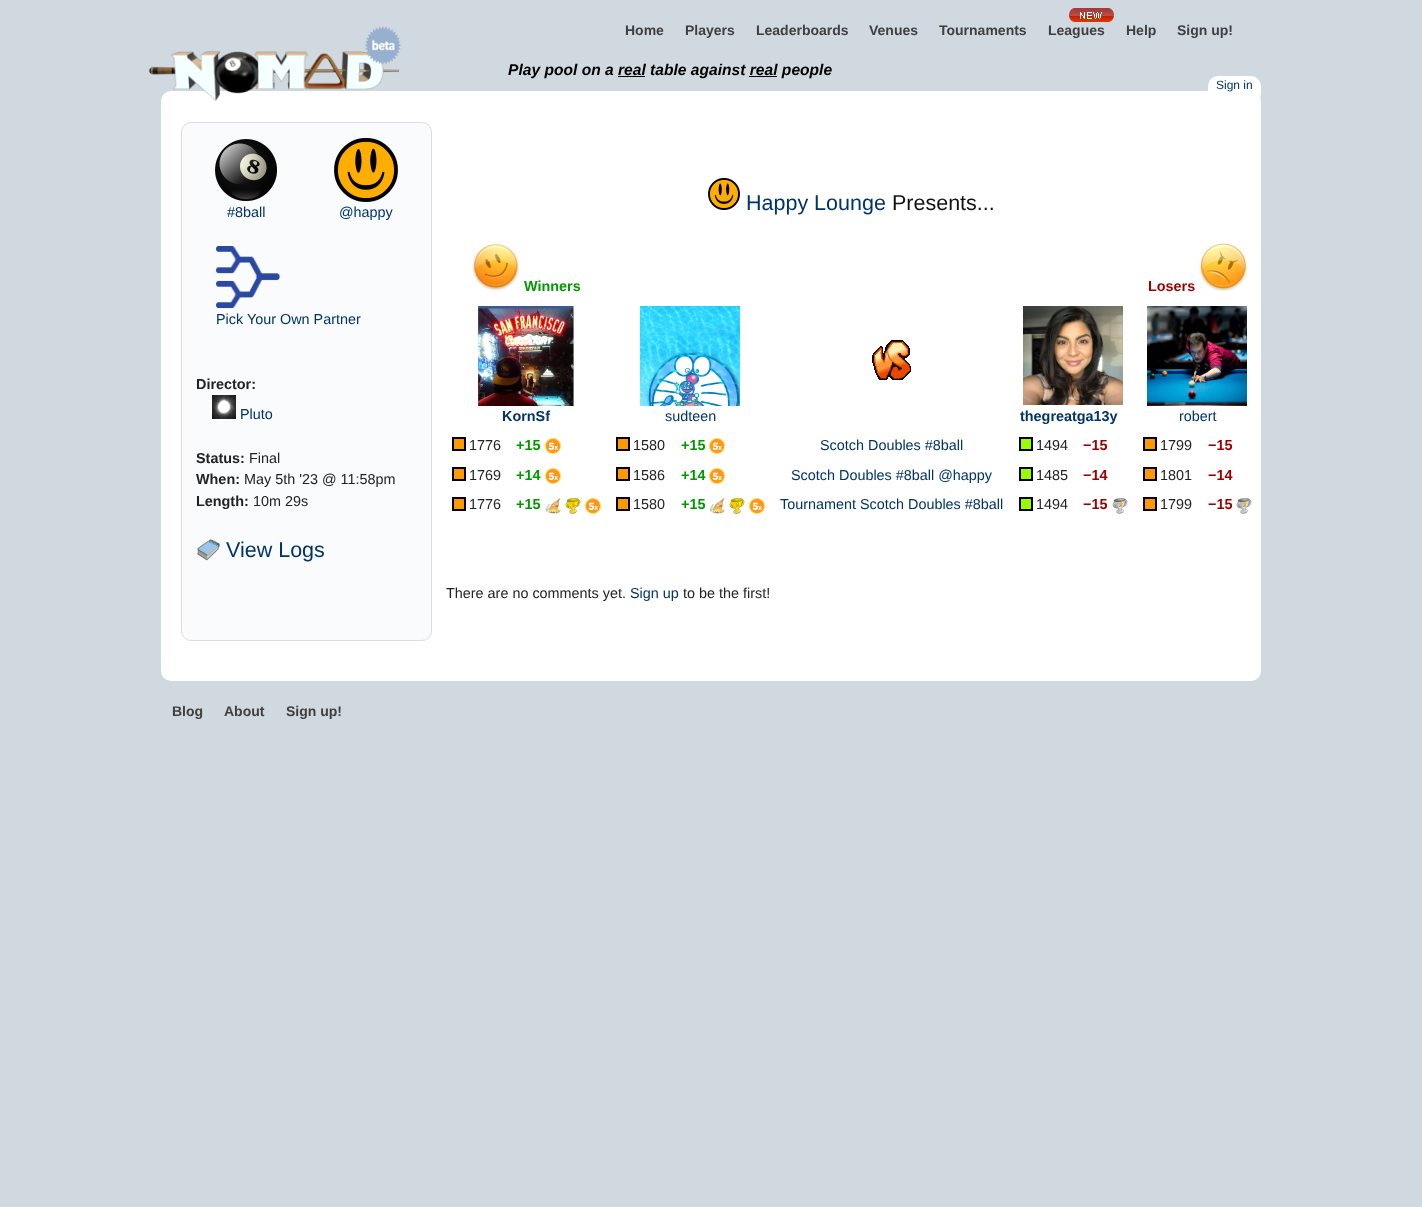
<svg xmlns="http://www.w3.org/2000/svg" width="1422" height="1207">
<rect width="100%" height="100%" fill="#d0d9e0"/>
<text x="625" y="35" style="font-family:Liberation Sans;font-size:14px;font-weight:bold;fill:#3f3f3f">Home</text>
<text x="685" y="35" style="font-family:Liberation Sans;font-size:14px;font-weight:bold;fill:#3f3f3f">Players</text>
<text x="756" y="35" style="font-family:Liberation Sans;font-size:14px;font-weight:bold;fill:#3f3f3f">Leaderboards</text>
<text x="869" y="35" style="font-family:Liberation Sans;font-size:14px;font-weight:bold;fill:#3f3f3f">Venues</text>
<text x="939" y="35" style="font-family:Liberation Sans;font-size:14px;font-weight:bold;fill:#3f3f3f">Tournaments</text>
<image x="1069" y="8" width="45" height="14" href="media/1.png"/>
<text x="1048" y="35" style="font-family:Liberation Sans;font-size:14px;font-weight:bold;fill:#3f3f3f">Leagues</text>
<text x="1126" y="35" style="font-family:Liberation Sans;font-size:14px;font-weight:bold;fill:#3f3f3f">Help</text>
<text x="1177" y="35" style="font-family:Liberation Sans;font-size:14px;font-weight:bold;fill:#3f3f3f">Sign up!</text>
<rect x="161" y="91" width="1100" height="590" rx="10" fill="#fff"/>
<image x="149" y="51" width="250" height="50" href="media/3.png"/>
<image x="365" y="26" width="36" height="39" href="media/2.png"/>
<text x="508" y="75" style="font-family:Liberation Sans;font-size:15.6px;font-weight:bold;font-style:italic;fill:#000">Play pool on a real table against real people</text>
<rect x="618" y="76" width="27" height="1" fill="#000"/>
<rect x="749" y="76" width="28" height="1" fill="#000"/>
<rect x="1208" y="76" width="53" height="28" rx="10" fill="#fff"/>
<text x="1216" y="89" style="font-family:Liberation Sans;font-size:12px;fill:#036">Sign in</text>
<rect x="181.5" y="122.5" width="250" height="518" rx="9.5" fill="#fafbfd" stroke="#ddd"/>
<image x="215" y="139" width="62" height="62" href="media/4.png"/>
<text x="227" y="217" style="font-family:Liberation Sans;font-size:14.4px;fill:#036">#8ball</text>
<image x="334" y="138" width="64" height="64" href="media/5.png"/>
<text x="339" y="217" style="font-family:Liberation Sans;font-size:14.4px;fill:#036">@happy</text>
<image x="216" y="246" width="64" height="63" href="media/6.png"/>
<text x="216" y="324" style="font-family:Liberation Sans;font-size:14.4px;fill:#036">Pick Your Own Partner</text>
<text x="196" y="389" style="font-family:Liberation Sans;font-size:14.4px;font-weight:bold;fill:#222">Director:</text>
<image x="212" y="395" width="24" height="24" href="media/7.png"/>
<text x="240" y="419" style="font-family:Liberation Sans;font-size:14.4px;fill:#036">Pluto</text>
<text x="196" y="463" style="font-family:Liberation Sans;font-size:14.4px;font-weight:bold;fill:#222">Status:</text>
<text x="249" y="463" style="font-family:Liberation Sans;font-size:14.4px;fill:#222">Final</text>
<text x="196" y="484" style="font-family:Liberation Sans;font-size:14.4px;font-weight:bold;fill:#222">When:</text>
<text x="244" y="484" style="font-family:Liberation Sans;font-size:14.4px;fill:#222">May 5th '23 @ 11:58pm</text>
<text x="196" y="506" style="font-family:Liberation Sans;font-size:14.4px;font-weight:bold;fill:#222">Length:</text>
<text x="253" y="506" style="font-family:Liberation Sans;font-size:14.4px;fill:#222">10m 29s</text>
<image x="197" y="539" width="23" height="22" href="media/8.png"/>
<text x="226" y="557" style="font-family:Liberation Sans;font-size:21.5px;fill:#036">View Logs</text>
<image x="708" y="178" width="32" height="32" href="media/9.png"/>
<text x="746" y="210" style="font-family:Liberation Sans;font-size:21.5px;fill:#036">Happy Lounge</text>
<text x="892" y="210" style="font-family:Liberation Sans;font-size:21.5px;fill:#111">Presents...</text>
<image x="472" y="243" width="47" height="48" href="media/10.png"/>
<text x="524" y="291" style="font-family:Liberation Sans;font-size:14.4px;font-weight:bold;fill:#090">Winners</text>
<text x="1148" y="291" style="font-family:Liberation Sans;font-size:14.4px;font-weight:bold;fill:#900">Losers</text>
<image x="1199" y="243" width="48" height="48" href="media/11.png"/>
<image x="872" y="340" width="39" height="40" href="media/12.png"/>
<image x="477" y="306" width="97" height="100" href="media/13.png"/>
<text x="502" y="421" style="font-family:Liberation Sans;font-size:14.4px;font-weight:bold;fill:#036">KornSf</text>
<image x="640" y="306" width="100" height="100" href="media/14.png"/>
<text x="665" y="421" style="font-family:Liberation Sans;font-size:14.4px;fill:#036">sudteen</text>
<image x="1023" y="306" width="100" height="99" href="media/15.png"/>
<text x="1020" y="421" style="font-family:Liberation Sans;font-size:14.4px;font-weight:bold;fill:#036">thegreatga13y</text>
<image x="1147" y="306" width="100" height="100" href="media/16.png"/>
<text x="1179" y="421" style="font-family:Liberation Sans;font-size:14.4px;fill:#036">robert</text>
<rect x="453" y="438" width="12" height="12" fill="#f90" stroke="#000" stroke-width="2"/>
<text x="469" y="450" style="font-family:Liberation Sans;font-size:14.4px;fill:#222">1776</text>
<text x="516" y="450" style="font-family:Liberation Sans;font-size:14.4px;font-weight:bold;fill:#090">+15</text>
<image x="545" y="438" width="16" height="16" href="media/17.png"/>
<rect x="617" y="438" width="12" height="12" fill="#f90" stroke="#000" stroke-width="2"/>
<text x="633" y="450" style="font-family:Liberation Sans;font-size:14.4px;fill:#222">1580</text>
<text x="681" y="450" style="font-family:Liberation Sans;font-size:14.4px;font-weight:bold;fill:#090">+15</text>
<image x="709" y="438" width="16" height="16" href="media/17.png"/>
<text x="820" y="450" style="font-family:Liberation Sans;font-size:14.4px;fill:#036">Scotch Doubles #8ball</text>
<rect x="1020" y="438" width="12" height="12" fill="#9f0" stroke="#000" stroke-width="2"/>
<text x="1036" y="450" style="font-family:Liberation Sans;font-size:14.4px;fill:#222">1494</text>
<text x="1083" y="450" style="font-family:Liberation Sans;font-size:14.4px;font-weight:bold;fill:#900">−15</text>
<rect x="1144" y="438" width="12" height="12" fill="#f90" stroke="#000" stroke-width="2"/>
<text x="1160" y="450" style="font-family:Liberation Sans;font-size:14.4px;fill:#222">1799</text>
<text x="1208" y="450" style="font-family:Liberation Sans;font-size:14.4px;font-weight:bold;fill:#900">−15</text>
<rect x="453" y="468" width="12" height="12" fill="#f90" stroke="#000" stroke-width="2"/>
<text x="469" y="480" style="font-family:Liberation Sans;font-size:14.4px;fill:#222">1769</text>
<text x="516" y="480" style="font-family:Liberation Sans;font-size:14.4px;font-weight:bold;fill:#090">+14</text>
<image x="545" y="468" width="16" height="16" href="media/17.png"/>
<rect x="617" y="468" width="12" height="12" fill="#f90" stroke="#000" stroke-width="2"/>
<text x="633" y="480" style="font-family:Liberation Sans;font-size:14.4px;fill:#222">1586</text>
<text x="681" y="480" style="font-family:Liberation Sans;font-size:14.4px;font-weight:bold;fill:#090">+14</text>
<image x="709" y="468" width="16" height="16" href="media/17.png"/>
<text x="791" y="480" style="font-family:Liberation Sans;font-size:14.4px;fill:#036">Scotch Doubles #8ball @happy</text>
<rect x="1020" y="468" width="12" height="12" fill="#9f0" stroke="#000" stroke-width="2"/>
<text x="1036" y="480" style="font-family:Liberation Sans;font-size:14.4px;fill:#222">1485</text>
<text x="1083" y="480" style="font-family:Liberation Sans;font-size:14.4px;font-weight:bold;fill:#900">−14</text>
<rect x="1144" y="468" width="12" height="12" fill="#f90" stroke="#000" stroke-width="2"/>
<text x="1160" y="480" style="font-family:Liberation Sans;font-size:14.4px;fill:#222">1801</text>
<text x="1208" y="480" style="font-family:Liberation Sans;font-size:14.4px;font-weight:bold;fill:#900">−14</text>
<rect x="453" y="498" width="12" height="12" fill="#f90" stroke="#000" stroke-width="2"/>
<text x="469" y="509" style="font-family:Liberation Sans;font-size:14.4px;fill:#222">1776</text>
<text x="516" y="509" style="font-family:Liberation Sans;font-size:14.4px;font-weight:bold;fill:#090">+15</text>
<image x="545" y="498" width="16" height="16" href="media/18.png"/>
<image x="565" y="498" width="16" height="16" href="media/19.png"/>
<image x="585" y="498" width="16" height="16" href="media/17.png"/>
<rect x="617" y="498" width="12" height="12" fill="#f90" stroke="#000" stroke-width="2"/>
<text x="633" y="509" style="font-family:Liberation Sans;font-size:14.4px;fill:#222">1580</text>
<text x="681" y="509" style="font-family:Liberation Sans;font-size:14.4px;font-weight:bold;fill:#090">+15</text>
<image x="709" y="498" width="16" height="16" href="media/18.png"/>
<image x="729" y="498" width="16" height="16" href="media/19.png"/>
<image x="749" y="498" width="16" height="16" href="media/17.png"/>
<text x="780" y="509" style="font-family:Liberation Sans;font-size:14.4px;fill:#036">Tournament Scotch Doubles #8ball</text>
<rect x="1020" y="498" width="12" height="12" fill="#9f0" stroke="#000" stroke-width="2"/>
<text x="1036" y="509" style="font-family:Liberation Sans;font-size:14.4px;fill:#222">1494</text>
<text x="1083" y="509" style="font-family:Liberation Sans;font-size:14.4px;font-weight:bold;fill:#900">−15</text>
<image x="1112" y="498" width="16" height="16" href="media/20.png"/>
<rect x="1144" y="498" width="12" height="12" fill="#f90" stroke="#000" stroke-width="2"/>
<text x="1160" y="509" style="font-family:Liberation Sans;font-size:14.4px;fill:#222">1799</text>
<text x="1208" y="509" style="font-family:Liberation Sans;font-size:14.4px;font-weight:bold;fill:#900">−15</text>
<image x="1236" y="498" width="16" height="16" href="media/20.png"/>
<text x="446" y="598" style="font-family:Liberation Sans;font-size:14.4px;fill:#222">There are no comments yet.</text>
<text x="630" y="598" style="font-family:Liberation Sans;font-size:14.4px;fill:#036">Sign up</text>
<text x="683" y="598" style="font-family:Liberation Sans;font-size:14.4px;fill:#222">to be the first!</text>
<text x="172" y="716" style="font-family:Liberation Sans;font-size:14px;font-weight:bold;fill:#3f3f3f">Blog</text>
<text x="224" y="716" style="font-family:Liberation Sans;font-size:14px;font-weight:bold;fill:#3f3f3f">About</text>
<text x="286" y="716" style="font-family:Liberation Sans;font-size:14px;font-weight:bold;fill:#3f3f3f">Sign up!</text>
</svg>
